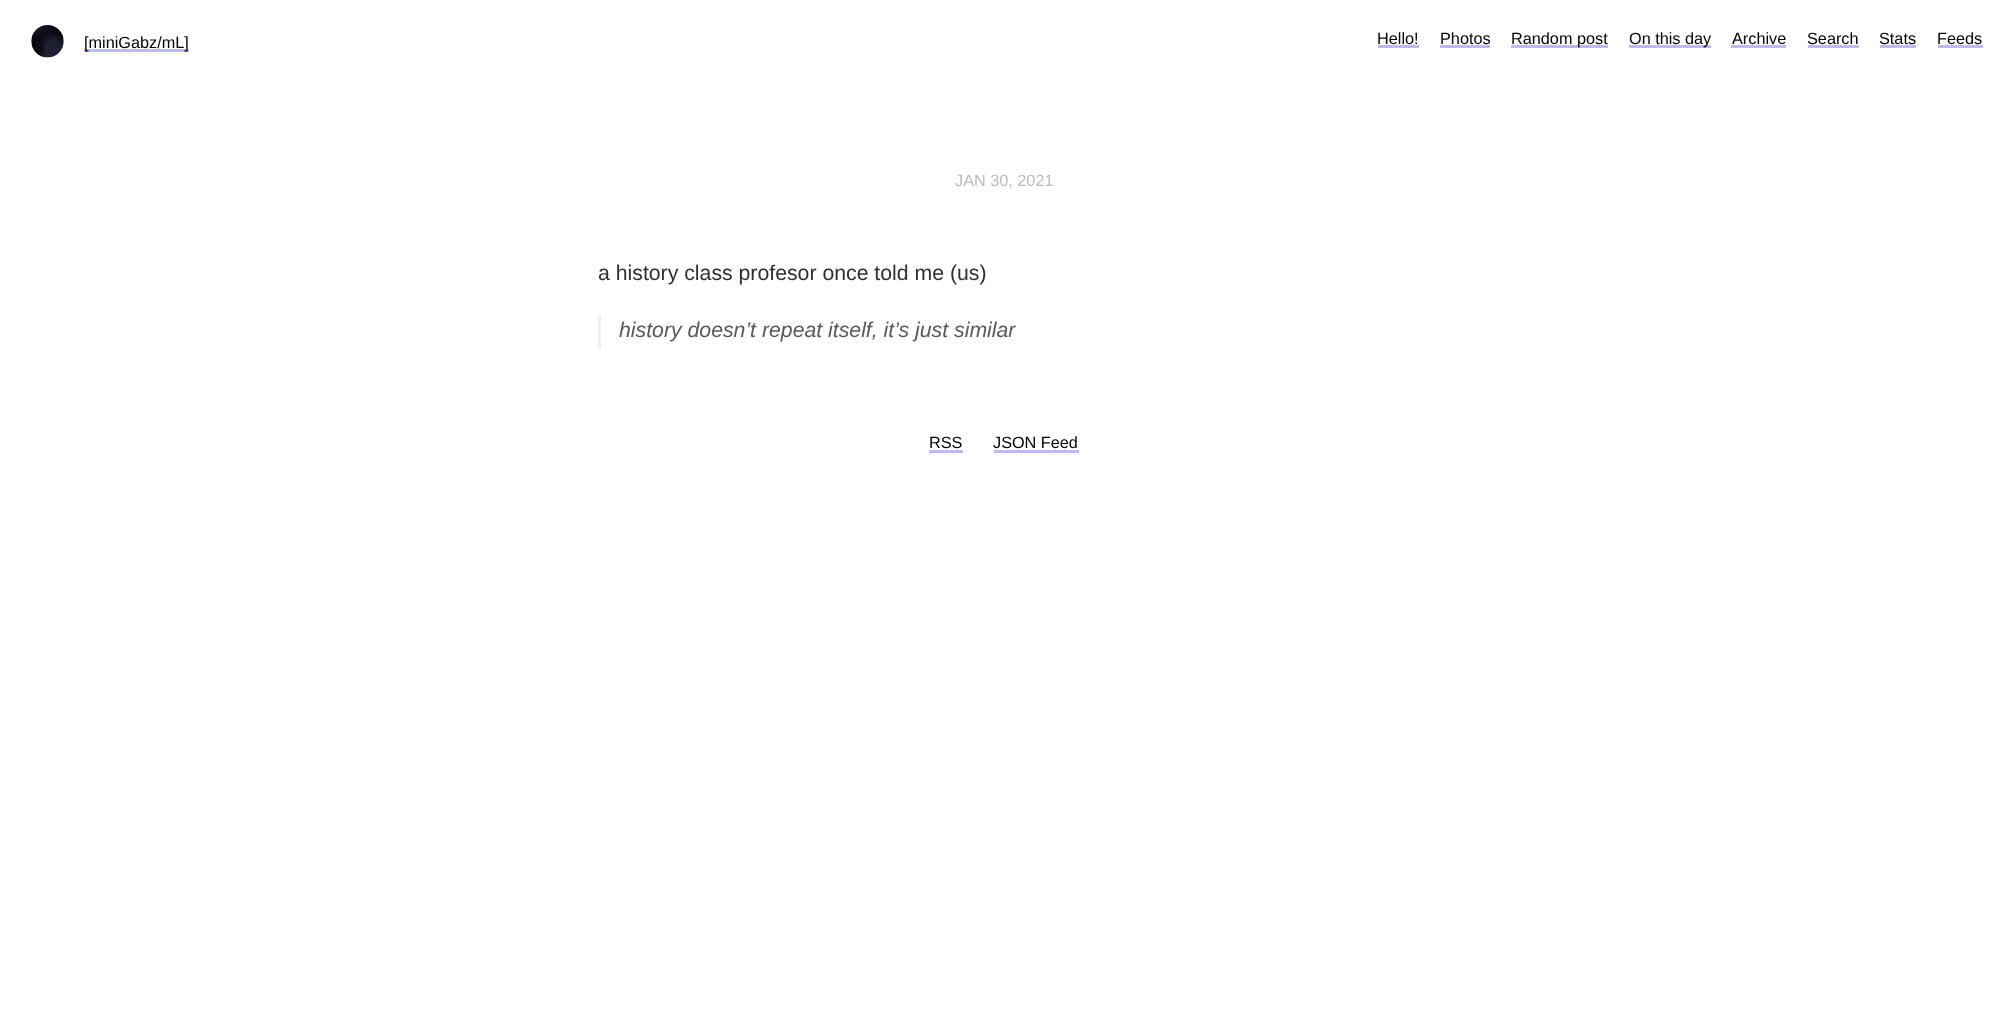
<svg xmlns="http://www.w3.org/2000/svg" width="2007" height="1011">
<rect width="100%" height="100%" fill="#fff"/>
<image x="31" y="25" width="33" height="33" href="media/1.png"/>
<rect x="84" y="49" width="105" height="3" fill="#babbf1"/>
<text x="84" y="48" style="font-family:Liberation Sans;font-size:16.25px;fill:#000">[miniGabz/mL]</text>
<text x="1377" y="44" style="font-family:Liberation Sans;font-size:16.25px;fill:#000">Hello!</text>
<rect x="1378" y="45" width="41" height="3" fill="#babbf1"/>
<text x="1440" y="44" style="font-family:Liberation Sans;font-size:16.25px;fill:#000">Photos</text>
<rect x="1440" y="45" width="50" height="3" fill="#babbf1"/>
<rect x="1511" y="45" width="97" height="3" fill="#babbf1"/>
<text x="1511" y="44" style="font-family:Liberation Sans;font-size:16.25px;fill:#000">Random post</text>
<rect x="1629" y="45" width="82" height="3" fill="#babbf1"/>
<text x="1629" y="44" style="font-family:Liberation Sans;font-size:16.25px;fill:#000">On this day</text>
<text x="1732" y="44" style="font-family:Liberation Sans;font-size:16.25px;fill:#000">Archive</text>
<rect x="1731" y="45" width="55" height="3" fill="#babbf1"/>
<text x="1807" y="44" style="font-family:Liberation Sans;font-size:16.25px;fill:#000">Search</text>
<rect x="1808" y="45" width="51" height="3" fill="#babbf1"/>
<text x="1879" y="44" style="font-family:Liberation Sans;font-size:16.25px;fill:#000">Stats</text>
<rect x="1880" y="45" width="36" height="3" fill="#babbf1"/>
<text x="1937" y="44" style="font-family:Liberation Sans;font-size:16.25px;fill:#000">Feeds</text>
<rect x="1938" y="45" width="45" height="3" fill="#babbf1"/>
<text x="955" y="186" style="font-family:Liberation Sans;font-size:16.25px;fill:#bbb">JAN 30, 2021</text>
<text x="598" y="280" style="font-family:Liberation Sans;font-size:21.25px;fill:#303030">a history class profesor once told me (us)</text>
<rect x="598" y="314" width="3" height="36" fill="#f1f1f1"/>
<text x="619" y="337" style="font-family:Liberation Sans;font-size:21.25px;font-style:italic;fill:#595959">history doesn’t repeat itself, it’s just similar</text>
<text x="929" y="448" style="font-family:Liberation Sans;font-size:16.25px;fill:#000">RSS</text>
<rect x="929" y="450" width="34" height="3" fill="#babbf1"/>
<text x="993" y="448" style="font-family:Liberation Sans;font-size:16.25px;fill:#000">JSON Feed</text>
<rect x="994" y="450" width="85" height="3" fill="#babbf1"/>
</svg>
